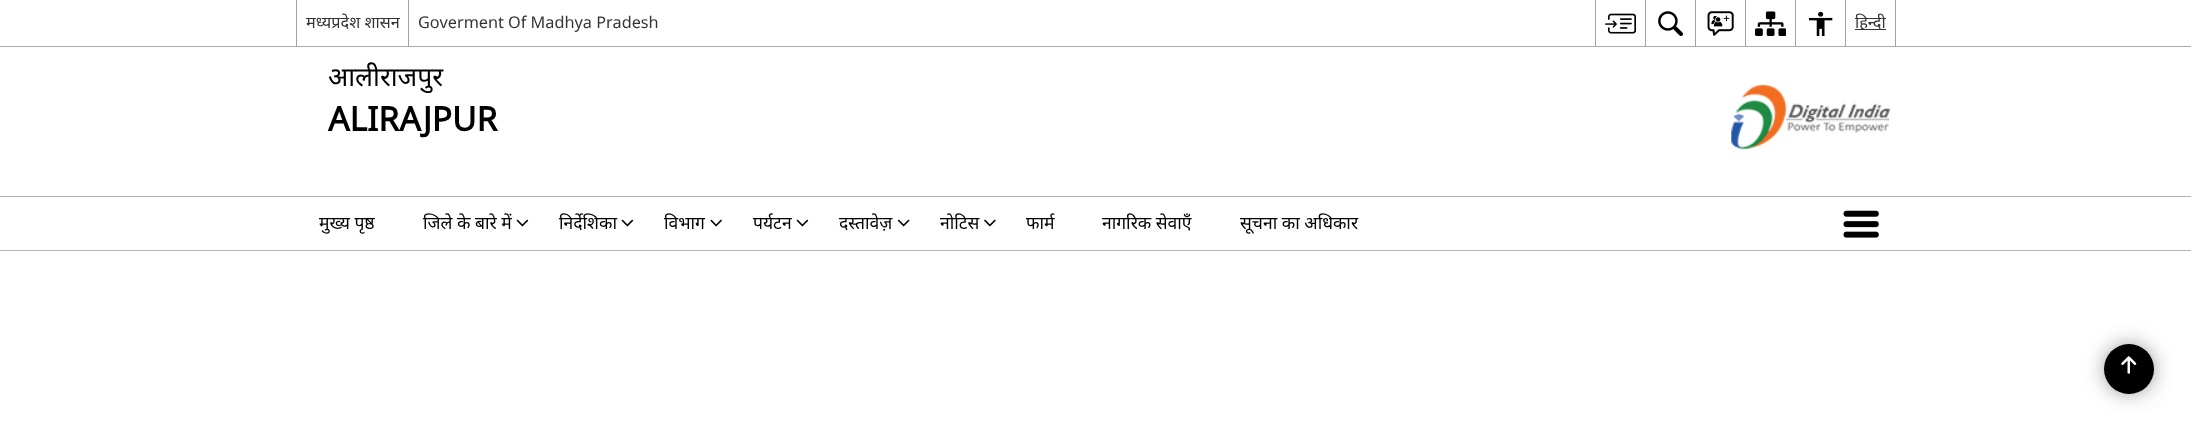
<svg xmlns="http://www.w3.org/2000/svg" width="2191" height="431">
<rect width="100%" height="100%" fill="#fff"/>
<rect y="46" width="2191" height="1" fill="#ababab"/>
<rect x="296" width="1" height="46" fill="#a3a3a3"/>
<text x="306" y="28" style="font-family:Noto Sans;font-size:16.25px;fill:#333">मध्यप्रदेश शासन</text>
<rect x="408" width="1" height="46" fill="#a3a3a3"/>
<text x="418" y="28" style="font-family:'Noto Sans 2';font-size:16.25px;fill:#333">Goverment Of Madhya Pradesh</text>
<rect x="1595" width="1" height="46" fill="#a3a3a3"/>
<image x="1605" y="13" width="31" height="21" href="media/1.png"/>
<rect x="1645" width="1" height="46" fill="#a3a3a3"/>
<image x="1658" y="11" width="25" height="25" href="media/2.png"/>
<rect x="1695" width="1" height="46" fill="#a3a3a3"/>
<image x="1707" y="11" width="27" height="25" href="media/3.png"/>
<rect x="1745" width="1" height="46" fill="#a3a3a3"/>
<image x="1755" y="11" width="31" height="25" href="media/4.png"/>
<rect x="1795" width="1" height="46" fill="#a3a3a3"/>
<image x="1808" y="11" width="25" height="25" href="media/5.png"/>
<rect x="1895" width="1" height="46" fill="#a3a3a3"/>
<rect x="1845" width="1" height="46" fill="#a3a3a3"/>
<rect x="1855" y="29" width="31" height="1" fill="#333"/>
<text x="1855" y="28" style="font-family:Noto Sans;font-size:16.25px;fill:#333">हिन्दी</text>
<text x="328" y="86" style="font-family:Noto Sans;font-size:26.5px;fill:#000">आलीराजपुर</text>
<text x="328" y="131" style="font-family:Noto Sans;font-size:33.5px;font-weight:bold;fill:#000">ALIRAJPUR</text>
<image x="1731" y="84" width="160" height="65" href="media/6.png"/>
<rect y="196" width="2191" height="1" fill="#b3b3b3"/>
<rect y="250" width="2191" height="1" fill="#b3b3b3"/>
<text x="319" y="229" style="font-family:Noto Sans;font-size:17.5px;fill:#000">मुख्य पृष्ठ</text>
<text x="423" y="229" style="font-family:Noto Sans;font-size:17.5px;fill:#000">जिले के बारे में</text>
<image x="516" y="219" width="13" height="8" href="media/7.png"/>
<text x="559" y="229" style="font-family:Noto Sans;font-size:17.5px;fill:#000">निर्देशिका</text>
<image x="621" y="219" width="13" height="8" href="media/7.png"/>
<text x="664" y="229" style="font-family:Noto Sans;font-size:17.5px;fill:#000">विभाग</text>
<image x="710" y="219" width="12" height="8" href="media/8.png"/>
<text x="753" y="229" style="font-family:Noto Sans;font-size:17.5px;fill:#000">पर्यटन</text>
<image x="796" y="219" width="13" height="8" href="media/7.png"/>
<text x="839" y="229" style="font-family:Noto Sans;font-size:17.5px;fill:#000">दस्तावेज़</text>
<image x="897" y="219" width="13" height="8" href="media/9.png"/>
<text x="940" y="229" style="font-family:Noto Sans;font-size:17.5px;fill:#000">नोटिस</text>
<image x="984" y="219" width="12" height="8" href="media/10.png"/>
<text x="1026" y="229" style="font-family:Noto Sans;font-size:17.5px;fill:#000">फार्म</text>
<text x="1102" y="229" style="font-family:Noto Sans;font-size:17.5px;fill:#000">नागरिक सेवाएँ</text>
<text x="1240" y="229" style="font-family:Noto Sans;font-size:17.5px;fill:#000">सूचना का अधिकार</text>
<image x="1843" y="210" width="36" height="28" href="media/11.png"/>
<rect x="2110" y="350" width="38" height="38" rx="19" fill="#3c3c3c" filter="blur(12px)"/>
<circle cx="2129" cy="369" r="25" fill="#000"/>
<image x="2121" y="356" width="16" height="18" href="media/12.png"/>
</svg>
